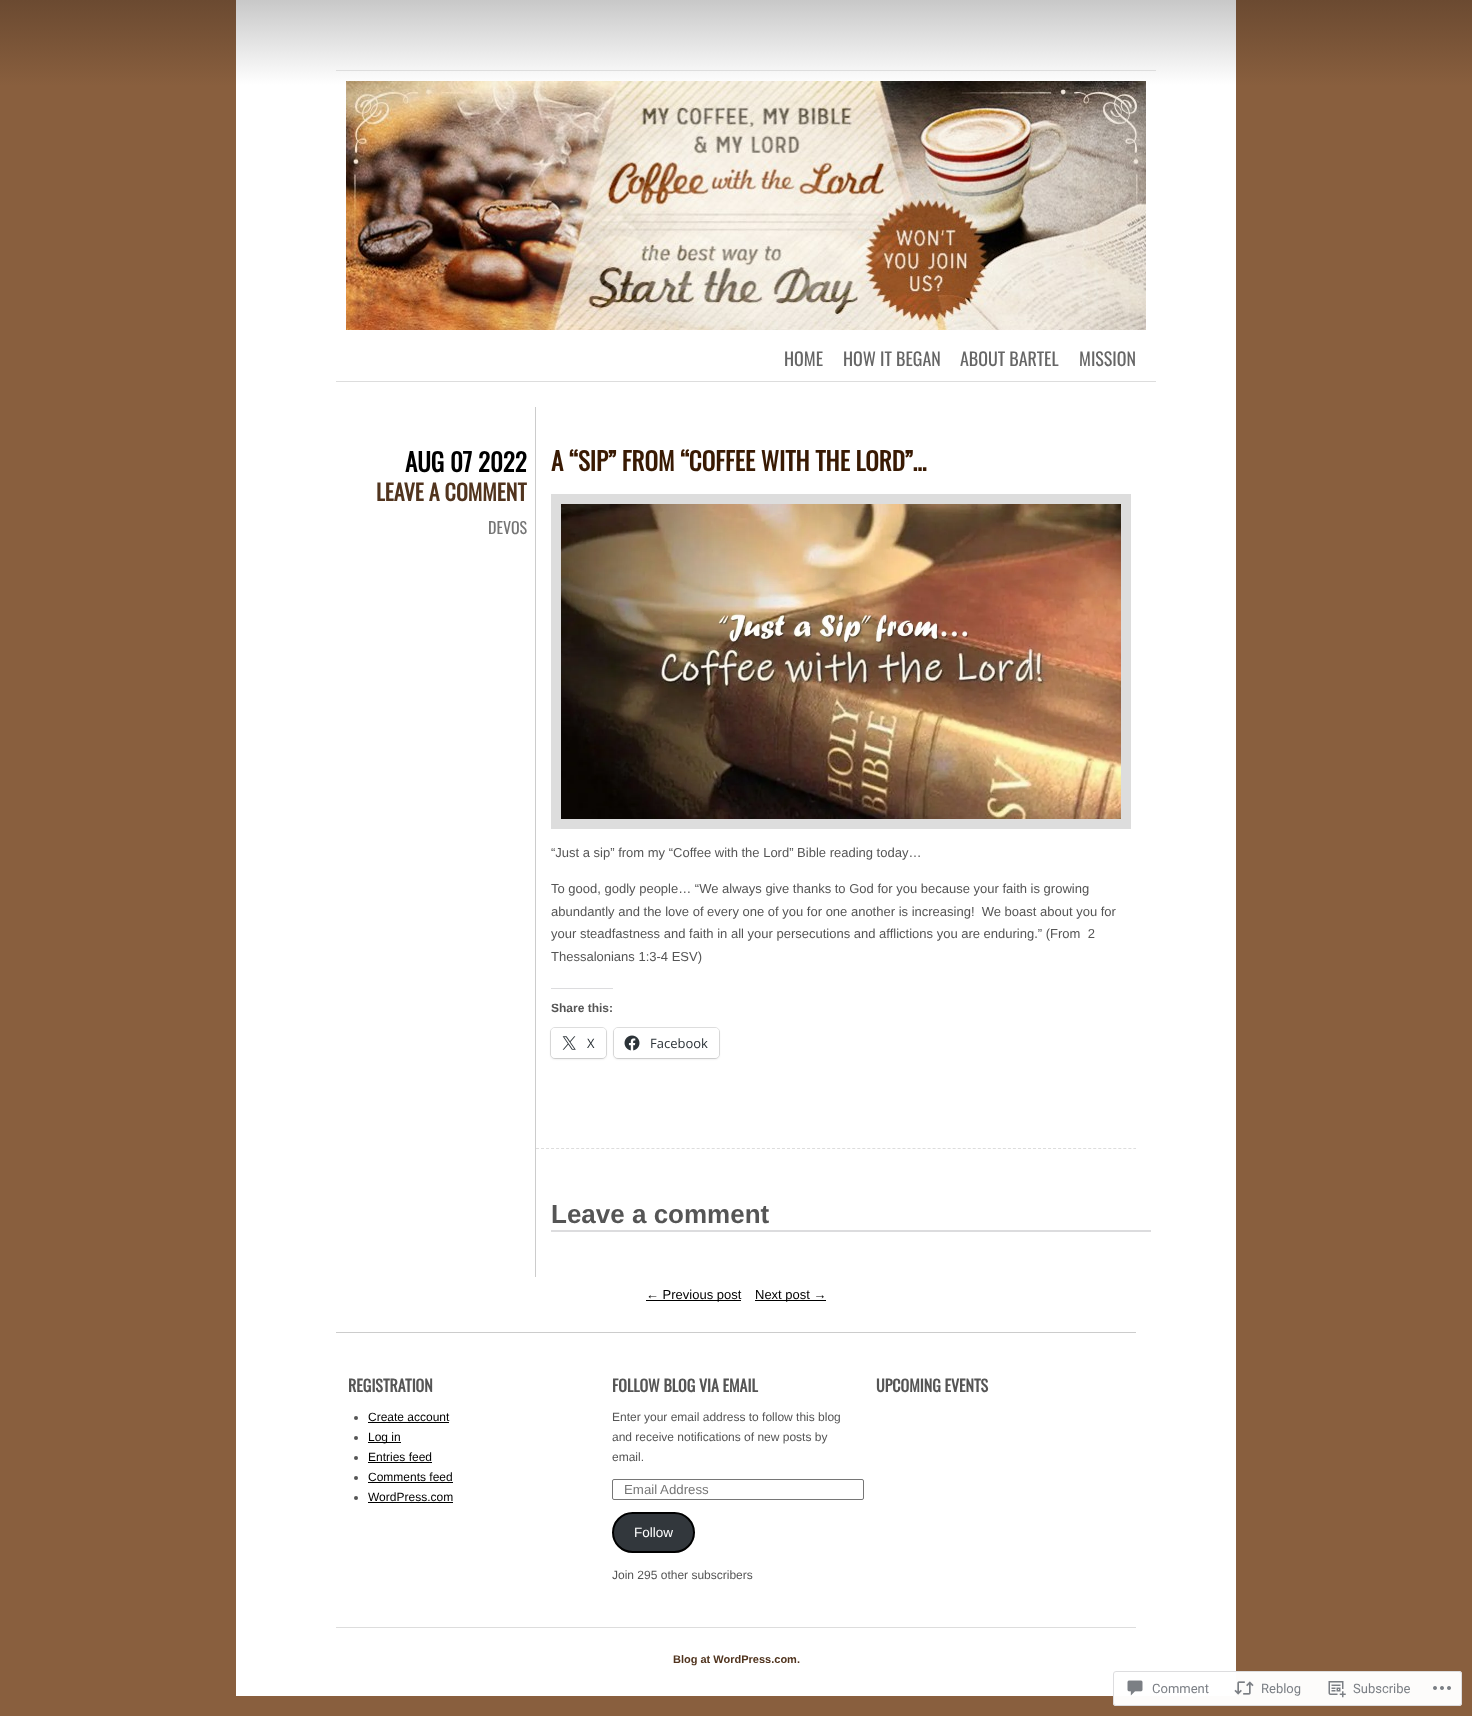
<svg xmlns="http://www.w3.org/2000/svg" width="1472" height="1716">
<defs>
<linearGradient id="g1" gradientUnits="userSpaceOnUse" x1="736" y1="0" x2="736" y2="1716"><stop offset="0" stop-color="#6b4a31"/><stop offset="0.05" stop-color="#895f3e"/></linearGradient>
<linearGradient id="g2" gradientUnits="userSpaceOnUse" x1="736" y1="0" x2="736" y2="1696"><stop offset="0" stop-color="#c8c8c8"/><stop offset="0.05" stop-color="#fff"/></linearGradient>
</defs>
<rect width="100%" height="100%" fill="#fff"/>
<rect width="1472" height="1716" fill="url(#g1)"/>
<rect x="236" width="1000" height="1696" fill="url(#g2)"/>
<rect x="336" y="70" width="820" height="1" fill="#ddd"/>
<rect x="336" y="381" width="820" height="1" fill="#ddd"/>
<image x="346" y="81" width="800" height="249" href="media/1.png"/>
<text x="784" y="366" style="font-family:Oswald;font-size:18px;fill:#666">HOME</text>
<text x="843" y="366" style="font-family:Oswald;font-size:18px;fill:#666">HOW IT BEGAN</text>
<text x="960" y="366" style="font-family:Oswald;font-size:18px;fill:#666">ABOUT BARTEL</text>
<text x="1079" y="366" style="font-family:Oswald;font-size:18px;fill:#666">MISSION</text>
<rect x="535" y="407" width="1" height="870" fill="#ccc"/>
<text x="405" y="472" style="font-family:Oswald;font-size:25px;font-weight:bold;fill:#000">AUG 07 2022</text>
<text x="376" y="501" style="font-family:Oswald;font-size:22px;font-weight:bold;fill:#51341e">LEAVE A COMMENT</text>
<text x="488" y="534" style="font-family:Oswald;font-size:16px;fill:#757575">DEVOS</text>
<path d="M536 1148.5h600" fill="none" stroke="#ddd" stroke-dasharray="3 2.02"/>
<text x="551" y="471" style="font-family:Oswald;font-size:25px;font-weight:bold;fill:#391a03">A “SIP” FROM “COFFEE WITH THE LORD”…</text>
<rect x="556" y="499" width="570" height="325" fill="none" stroke="#ddd" stroke-width="10"/>
<image x="561" y="504" width="560" height="315" href="media/2.png"/>
<text x="551" y="857" style="font-family:Liberation Sans;font-size:13px;fill:#555">“Just a sip” from my “Coffee with the Lord” Bible reading today…</text>
<text x="551" y="893" style="font-family:Liberation Sans;font-size:13px;fill:#555">To good, godly people… “We always give thanks to God for you because your faith is growing</text>
<text x="551" y="916" style="font-family:Liberation Sans;font-size:13px;fill:#555" xml:space="preserve">abundantly and the love of every one of you for one another is increasing!  We boast about you for</text>
<text x="551" y="938" style="font-family:Liberation Sans;font-size:13px;fill:#555" xml:space="preserve">your steadfastness and faith in all your persecutions and afflictions you are enduring.” (From  2</text>
<text x="551" y="961" style="font-family:Liberation Sans;font-size:13px;fill:#555">Thessalonians 1:3-4 ESV)</text>
<rect x="551" y="988" width="62" height="1" fill="#dcdcde"/>
<text x="551" y="1012" style="font-family:Liberation Sans;font-size:12px;font-weight:bold;fill:#555">Share this:</text>
<rect x="550.5" y="1027.5" width="56" height="31" rx="4.5" fill="none" stroke="#e0e0e0"/>
<rect x="551" y="1029" width="55" height="30" rx="4" fill="#0000001f" filter="blur(1px)"/>
<rect x="551" y="1028" width="55" height="30" rx="4" fill="#fff"/>
<image x="562" y="1036" width="14" height="14" href="media/3.png"/>
<text x="587" y="1048" style="font-family:Open Sans;font-size:13px;fill:#2c3338">X</text>
<rect x="613.5" y="1027.5" width="106" height="31" rx="4.5" fill="none" stroke="#e0e0e0"/>
<rect x="614" y="1029" width="105" height="30" rx="4" fill="#0000001f" filter="blur(1px)"/>
<rect x="614" y="1028" width="105" height="30" rx="4" fill="#fff"/>
<image x="624" y="1035" width="16" height="16" href="media/4.png"/>
<text x="650" y="1048" style="font-family:Open Sans;font-size:13px;fill:#2c3338">Facebook</text>
<text x="551" y="1223" style="font-family:Liberation Sans;font-size:26px;font-weight:bold;fill:#555">Leave a comment</text>
<rect x="551" y="1230" width="600" height="2" fill="#dcdcde"/>
<rect x="646" y="1300" width="95" height="1" fill="#000"/>
<text x="646" y="1299" style="font-family:Liberation Sans;font-size:13px;fill:#000">← Previous post</text>
<rect x="755" y="1300" width="71" height="1" fill="#000"/>
<text x="755" y="1299" style="font-family:Liberation Sans;font-size:13px;fill:#000">Next post →</text>
<rect x="336" y="1332" width="800" height="1" fill="#ccc"/>
<text x="348" y="1392" style="font-family:Oswald;font-size:16px;font-weight:bold;fill:#555">REGISTRATION</text>
<circle cx="356" cy="1418" r="2" fill="#555"/>
<text x="368" y="1421" style="font-family:Liberation Sans;font-size:12px;fill:#000">Create account</text>
<rect x="368" y="1422" width="81" height="1" fill="#000"/>
<circle cx="356" cy="1438" r="2" fill="#555"/>
<rect x="368" y="1442" width="33" height="1" fill="#000"/>
<text x="368" y="1441" style="font-family:Liberation Sans;font-size:12px;fill:#000">Log in</text>
<circle cx="356" cy="1458" r="2" fill="#555"/>
<text x="368" y="1461" style="font-family:Liberation Sans;font-size:12px;fill:#000">Entries feed</text>
<rect x="368" y="1462" width="64" height="1" fill="#000"/>
<circle cx="356" cy="1478" r="2" fill="#555"/>
<text x="368" y="1481" style="font-family:Liberation Sans;font-size:12px;fill:#000">Comments feed</text>
<rect x="368" y="1482" width="85" height="1" fill="#000"/>
<circle cx="356" cy="1498" r="2" fill="#555"/>
<text x="368" y="1501" style="font-family:Liberation Sans;font-size:12px;fill:#000">WordPress.com</text>
<rect x="368" y="1502" width="85" height="1" fill="#000"/>
<text x="612" y="1392" style="font-family:Oswald;font-size:16px;font-weight:bold;fill:#555">FOLLOW BLOG VIA EMAIL</text>
<text x="612" y="1421" style="font-family:Liberation Sans;font-size:12px;fill:#555">Enter your email address to follow this blog</text>
<text x="612" y="1441" style="font-family:Liberation Sans;font-size:12px;fill:#555">and receive notifications of new posts by</text>
<text x="612" y="1461" style="font-family:Liberation Sans;font-size:12px;fill:#555">email.</text>
<rect x="612.5" y="1479.5" width="251" height="20" rx="1.5" fill="none" stroke="#767676"/>
<text x="624" y="1494" style="font-family:Liberation Sans;font-size:13.25px;fill:#757575">Email Address</text>
<rect x="613" y="1513" width="81" height="39" rx="19.5" fill="#32373c" stroke="#000" stroke-width="2"/>
<text x="634" y="1537" style="font-family:Liberation Sans;font-size:13.5px;fill:#fff">Follow</text>
<text x="612" y="1579" style="font-family:Liberation Sans;font-size:12px;fill:#555">Join 295 other subscribers</text>
<text x="876" y="1392" style="font-family:Oswald;font-size:16px;font-weight:bold;fill:#555">UPCOMING EVENTS</text>
<rect x="336" y="1627" width="800" height="1" fill="#ddd"/>
<text x="673" y="1663" style="font-family:Liberation Sans;font-size:11px;font-weight:bold;fill:#51341e">Blog at WordPress.com.</text>
<rect x="1113" y="1671" width="349" height="35" rx="3" fill="#fffffffa"/>
<rect x="1113.5" y="1671.5" width="348" height="34" rx="2.5" fill="none" stroke="#dcdcdefa"/>
<image x="1127" y="1680" width="16" height="16" href="media/5.png"/>
<text x="1152" y="1693" style="font-family:Roboto;font-size:13px;fill:#7b7f85">Comment</text>
<image x="1234" y="1681" width="20" height="14" href="media/6.png"/>
<text x="1261" y="1693" style="font-family:Roboto;font-size:13px;fill:#7b7f85">Reblog</text>
<image x="1328" y="1681" width="18" height="17" href="media/7.png"/>
<text x="1353" y="1693" style="font-family:Roboto;font-size:13px;fill:#7b7f85">Subscribe</text>
<image x="1433" y="1686" width="18" height="4" href="media/8.png"/>
</svg>
